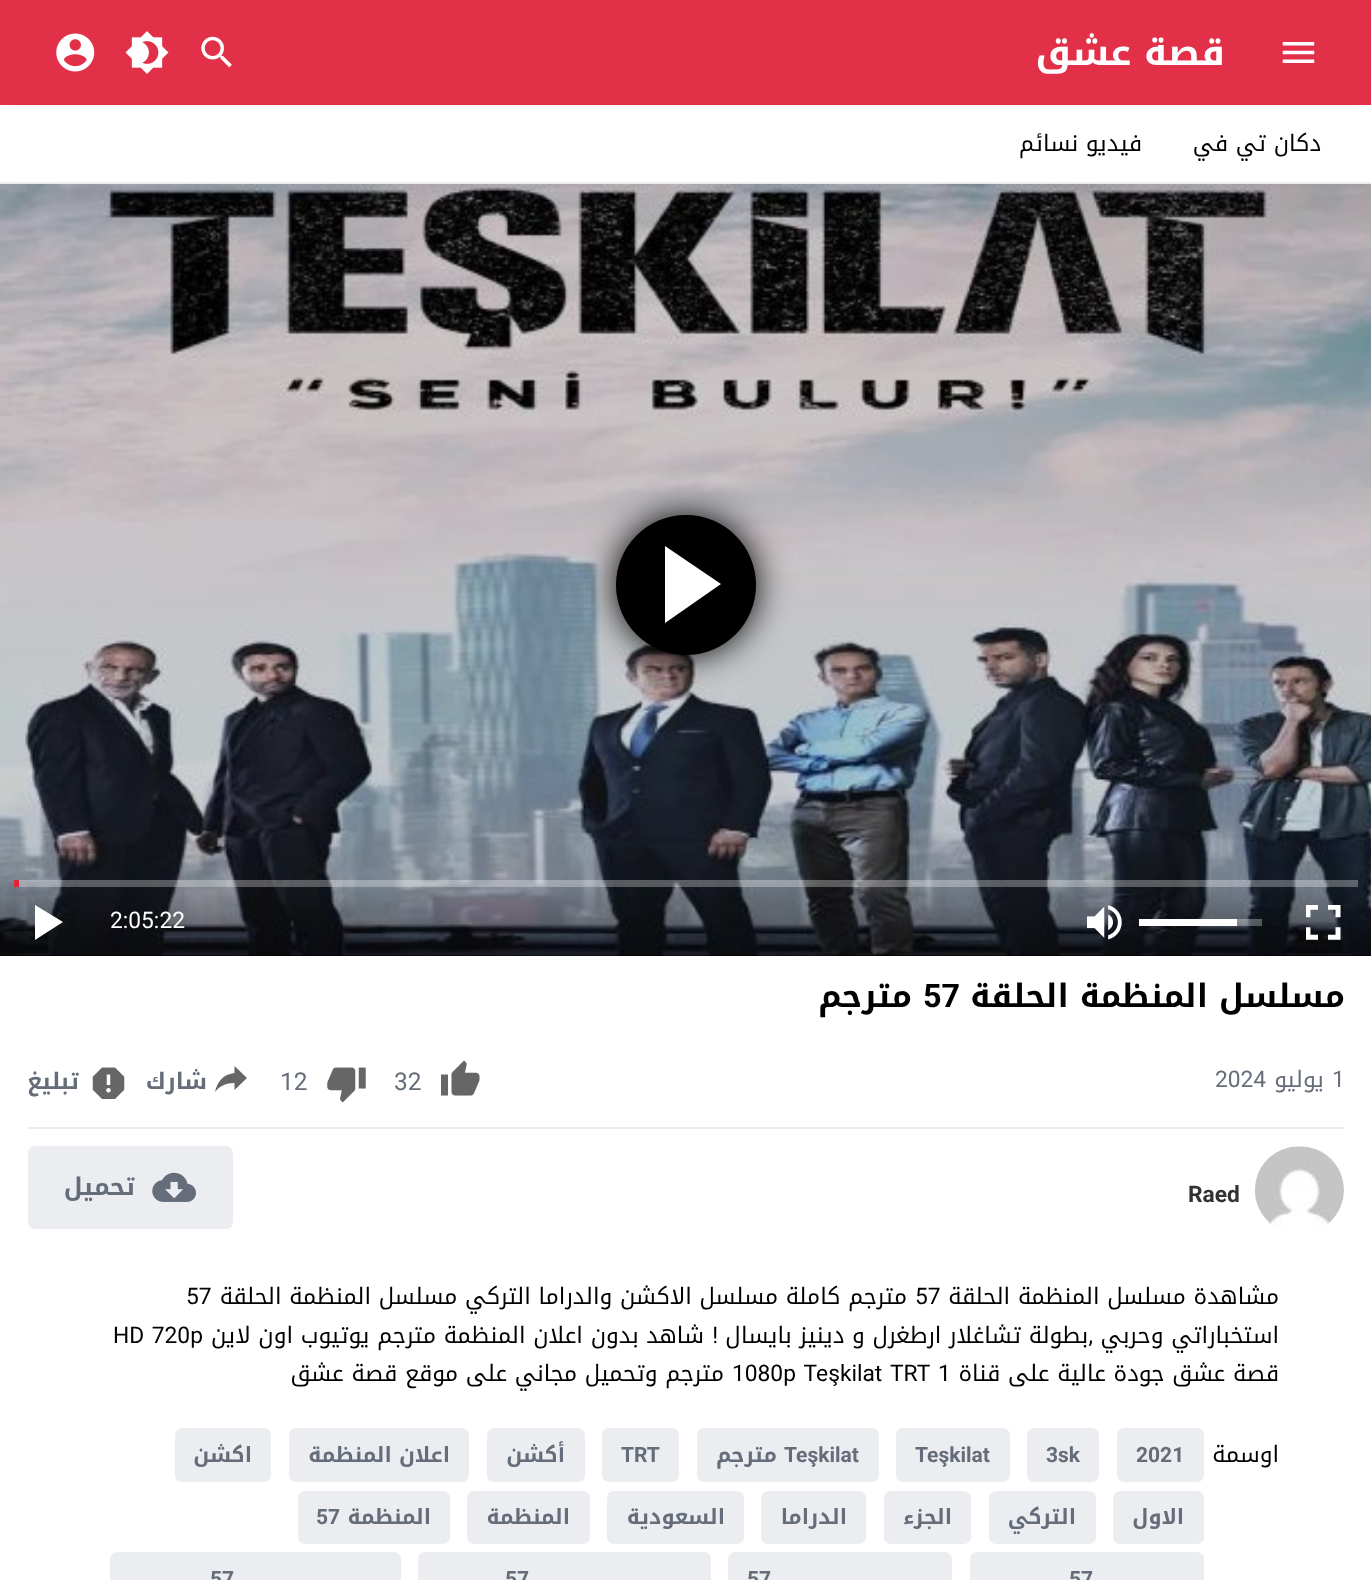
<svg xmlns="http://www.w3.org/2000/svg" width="1371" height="1580">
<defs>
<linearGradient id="g1" gradientUnits="userSpaceOnUse" x1="686" y1="880" x2="686" y2="957"><stop offset="0" stop-color="#000" stop-opacity="0"/><stop offset="1" stop-color="#000" stop-opacity="0.4"/></linearGradient>
</defs>
<rect width="100%" height="100%" fill="#fff"/>
<rect x="9" y="12" width="1354" height="88" fill="#999" filter="blur(4.5px)"/>
<rect width="1371" height="105" fill="#e33049"/>
<image x="1282" y="42" width="33" height="21" href="media/1.png"/>
<text x="1225" y="65" style="font-family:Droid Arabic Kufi;font-size:36.75px;font-weight:bold;direction:rtl;fill:#fff">قصة عشق</text>
<image x="201" y="36" width="31" height="32" href="media/2.png"/>
<image x="125" y="31" width="44" height="43" href="media/3.png"/>
<image x="56" y="33" width="39" height="39" href="media/4.png"/>
<rect y="182" width="1371" height="2" fill="#eee"/>
<text x="1321" y="151" style="font-family:Droid Arabic Kufi;font-size:22.75px;direction:rtl;fill:#000">دكان تي في</text>
<text x="1142" y="151" style="font-family:Droid Arabic Kufi;font-size:22.75px;direction:rtl;fill:#000">فيديو نسائم</text>
<rect y="955" width="1371" height="1" fill="#000"/>
<image x="0" y="183" width="1371" height="773" href="media/5.png"/>
<rect x="616" y="515" width="140" height="140" rx="70" fill="#000" filter="blur(17.5px)"/>
<circle cx="686" cy="585" r="70" fill="#000"/>
<path d="M665 623v-77l56 38z" fill="#fff"/>
<rect y="884" width="1371" height="72" fill="url(#g1)"/>
<rect x="14" y="880" width="1344" height="7" fill="#ffffff4d"/>
<rect x="14" y="880" width="5" height="7" fill="#e82239"/>
<image x="1306" y="905" width="35" height="35" href="media/6.png"/>
<rect x="1237" y="919" width="25" height="7" fill="#ffffff4d"/>
<rect x="1139" y="919" width="98" height="7" fill="#fff"/>
<image x="1087" y="905" width="35" height="35" href="media/7.png"/>
<text x="110" y="928" style="font-family:Roboto;font-size:22.75px;fill:#fff">2:05:22</text>
<path d="M35 905v35l28-18z" fill="#fff"/>
<text x="1345" y="1007" style="font-family:Droid Arabic Kufi;font-size:32.25px;font-weight:bold;direction:rtl;fill:#000">مسلسل المنظمة الحلقة</text>
<text x="923" y="1007" style="font-family:Roboto;font-size:32.25px;font-weight:bold;fill:#000">57</text>
<text x="912" y="1007" style="font-family:Droid Arabic Kufi;font-size:32.25px;font-weight:bold;direction:rtl;fill:#000">مترجم</text>
<rect x="28" y="1127" width="1316" height="2" fill="#eee"/>
<text x="1332" y="1087" style="font-family:Roboto;font-size:22.75px;fill:#656c7a">1</text>
<text x="1324" y="1087" style="font-family:Droid Arabic Kufi;font-size:22.75px;direction:rtl;fill:#656c7a">يوليو</text>
<text x="1215" y="1087" style="font-family:Roboto;font-size:22.75px;fill:#656c7a">2024</text>
<image x="441" y="1060" width="39" height="36" href="media/8.png"/>
<text x="394" y="1090" style="font-family:Roboto;font-size:24.5px;fill:#656c7a">32</text>
<image x="327" y="1067" width="39" height="36" href="media/9.png"/>
<text x="280" y="1090" style="font-family:Roboto;font-size:24.5px;fill:#656c7a">12</text>
<path d="M247 1078l-12.5-12v7c-12.5 1.5-17.5 10-19.5 19c4.5-6 11-9 19.5-9v7z" fill="#666"/>
<text x="207" y="1089" style="font-family:Droid Arabic Kufi;font-size:22.75px;font-weight:bold;direction:rtl;fill:#656c7a">شارك</text>
<image x="92" y="1067" width="33" height="32" href="media/10.png"/>
<text x="79" y="1089" style="font-family:Droid Arabic Kufi;font-size:22.75px;font-weight:bold;direction:rtl;fill:#656c7a">تبليغ</text>
<image x="1255" y="1146" width="89" height="82" href="media/11.png"/>
<text x="1188" y="1202" style="font-family:Roboto;font-size:22.75px;font-weight:bold;fill:#333">Raed</text>
<rect x="29" y="1147" width="203" height="81" rx="6" fill="#ecedf1" stroke="#ecedf1" stroke-width="2"/>
<image x="152" y="1172" width="44" height="30" href="media/12.png"/>
<text x="135" y="1195" style="font-family:Droid Arabic Kufi;font-size:24.5px;font-weight:bold;direction:rtl;fill:#656c7a">تحميل</text>
<text x="1279" y="1304" style="font-family:Droid Arabic Kufi;font-size:22.75px;direction:rtl;fill:#000">مشاهدة مسلسل المنظمة الحلقة</text>
<text x="915" y="1304" style="font-family:Roboto;font-size:22.75px;fill:#000">57</text>
<text x="907" y="1304" style="font-family:Droid Arabic Kufi;font-size:22.75px;direction:rtl;fill:#000">مترجم كاملة مسلسل الاكشن والدراما التركي مسلسل المنظمة الحلقة</text>
<text x="186" y="1304" style="font-family:Roboto;font-size:22.75px;fill:#000">57</text>
<text x="1279" y="1343" style="font-family:Droid Arabic Kufi;font-size:22.75px;direction:rtl;fill:#000">استخباراتي وحربي</text>
<text x="1093" y="1343" style="font-family:Roboto;font-size:22.75px;direction:rtl;fill:#000">,</text>
<text x="1088" y="1343" style="font-family:Droid Arabic Kufi;font-size:22.75px;direction:rtl;fill:#000">بطولة تشاغلار ارطغرل و دينيز بايسال</text>
<text x="718" y="1343" style="font-family:Roboto;font-size:22.75px;direction:rtl;fill:#000">!</text>
<text x="704" y="1343" style="font-family:Droid Arabic Kufi;font-size:22.75px;direction:rtl;fill:#000">شاهد بدون اعلان المنظمة مترجم يوتيوب اون لاين</text>
<text x="113" y="1343" word-spacing="2" style="font-family:Roboto;font-size:22.75px;fill:#000">HD 720p</text>
<text x="1279" y="1381" style="font-family:Droid Arabic Kufi;font-size:22.75px;direction:rtl;fill:#000">قصة عشق جودة عالية على قناة</text>
<text x="732" y="1381" word-spacing="2.5" style="font-family:Roboto;font-size:22.75px;fill:#000">1080p Teşkilat TRT 1</text>
<text x="724" y="1381" style="font-family:Droid Arabic Kufi;font-size:22.75px;direction:rtl;fill:#000">مترجم وتحميل مجاني على موقع قصة عشق</text>
<text x="1279" y="1462" style="font-family:Droid Arabic Kufi;font-size:22.75px;direction:rtl;fill:#000">اوسمة</text>
<rect x="1118" y="1429" width="85" height="52" rx="6" fill="#ecedf1" stroke="#ecedf1" stroke-width="2"/>
<text x="1136" y="1462" style="font-family:Roboto;font-size:21px;font-weight:bold;fill:#656c7a">2021</text>
<rect x="1028" y="1429" width="70" height="52" rx="6" fill="#ecedf1" stroke="#ecedf1" stroke-width="2"/>
<text x="1046" y="1462" style="font-family:Roboto;font-size:21px;font-weight:bold;fill:#656c7a">3sk</text>
<rect x="897" y="1429" width="112" height="52" rx="6" fill="#ecedf1" stroke="#ecedf1" stroke-width="2"/>
<text x="915" y="1462" style="font-family:Roboto;font-size:21px;font-weight:bold;fill:#656c7a">Teşkilat</text>
<rect x="698" y="1429" width="180" height="52" rx="6" fill="#ecedf1" stroke="#ecedf1" stroke-width="2"/>
<text x="784" y="1462" style="font-family:Roboto;font-size:21px;font-weight:bold;fill:#656c7a">Teşkilat</text>
<text x="777" y="1462" style="font-family:Droid Arabic Kufi;font-size:21px;font-weight:bold;direction:rtl;fill:#656c7a">مترجم</text>
<rect x="603" y="1429" width="75" height="52" rx="6" fill="#ecedf1" stroke="#ecedf1" stroke-width="2"/>
<text x="621" y="1462" style="font-family:Roboto;font-size:21px;font-weight:bold;fill:#656c7a">TRT</text>
<rect x="488" y="1429" width="96" height="52" rx="6" fill="#ecedf1" stroke="#ecedf1" stroke-width="2"/>
<text x="565" y="1462" style="font-family:Droid Arabic Kufi;font-size:21px;font-weight:bold;direction:rtl;fill:#656c7a">أكشن</text>
<rect x="290" y="1429" width="178" height="52" rx="6" fill="#ecedf1" stroke="#ecedf1" stroke-width="2"/>
<text x="450" y="1462" style="font-family:Droid Arabic Kufi;font-size:21px;font-weight:bold;direction:rtl;fill:#656c7a">اعلان المنظمة</text>
<rect x="176" y="1429" width="94" height="52" rx="6" fill="#ecedf1" stroke="#ecedf1" stroke-width="2"/>
<text x="252" y="1462" style="font-family:Droid Arabic Kufi;font-size:21px;font-weight:bold;direction:rtl;fill:#656c7a">اكشن</text>
<rect x="1114" y="1492" width="89" height="51" rx="6" fill="#ecedf1" stroke="#ecedf1" stroke-width="2"/>
<text x="1184" y="1524" style="font-family:Droid Arabic Kufi;font-size:21px;font-weight:bold;direction:rtl;fill:#656c7a">الاول</text>
<rect x="990" y="1492" width="105" height="51" rx="6" fill="#ecedf1" stroke="#ecedf1" stroke-width="2"/>
<text x="1076" y="1524" style="font-family:Droid Arabic Kufi;font-size:21px;font-weight:bold;direction:rtl;fill:#656c7a">التركي</text>
<rect x="885" y="1492" width="85" height="51" rx="6" fill="#ecedf1" stroke="#ecedf1" stroke-width="2"/>
<text x="952" y="1524" style="font-family:Droid Arabic Kufi;font-size:21px;font-weight:bold;direction:rtl;fill:#656c7a">الجزء</text>
<rect x="762" y="1492" width="103" height="51" rx="6" fill="#ecedf1" stroke="#ecedf1" stroke-width="2"/>
<text x="847" y="1524" style="font-family:Droid Arabic Kufi;font-size:21px;font-weight:bold;direction:rtl;fill:#656c7a">الدراما</text>
<rect x="608" y="1492" width="135" height="51" rx="6" fill="#ecedf1" stroke="#ecedf1" stroke-width="2"/>
<text x="725" y="1524" style="font-family:Droid Arabic Kufi;font-size:21px;font-weight:bold;direction:rtl;fill:#656c7a">السعودية</text>
<rect x="468" y="1492" width="121" height="51" rx="6" fill="#ecedf1" stroke="#ecedf1" stroke-width="2"/>
<text x="570" y="1524" style="font-family:Droid Arabic Kufi;font-size:21px;font-weight:bold;direction:rtl;fill:#656c7a">المنظمة</text>
<rect x="299" y="1492" width="150" height="51" rx="6" fill="#ecedf1" stroke="#ecedf1" stroke-width="2"/>
<text x="431" y="1524" style="font-family:Droid Arabic Kufi;font-size:21px;font-weight:bold;direction:rtl;fill:#656c7a">المنظمة</text>
<text x="316" y="1524" style="font-family:Roboto;font-size:21px;font-weight:bold;fill:#656c7a">57</text>
<rect x="971" y="1553" width="232" height="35" rx="6" fill="#ecedf1" stroke="#ecedf1" stroke-width="2"/>
<text x="1069" y="1586" style="font-family:Roboto;font-size:21px;font-weight:bold;fill:#656c7a">57</text>
<rect x="729" y="1553" width="222" height="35" rx="6" fill="#ecedf1" stroke="#ecedf1" stroke-width="2"/>
<text x="747" y="1586" style="font-family:Roboto;font-size:21px;font-weight:bold;fill:#656c7a">57</text>
<rect x="419" y="1553" width="291" height="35" rx="6" fill="#ecedf1" stroke="#ecedf1" stroke-width="2"/>
<text x="505" y="1586" style="font-family:Roboto;font-size:21px;font-weight:bold;fill:#656c7a">57</text>
<rect x="111" y="1553" width="289" height="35" rx="6" fill="#ecedf1" stroke="#ecedf1" stroke-width="2"/>
<text x="210" y="1586" style="font-family:Roboto;font-size:21px;font-weight:bold;fill:#656c7a">57</text>
</svg>
